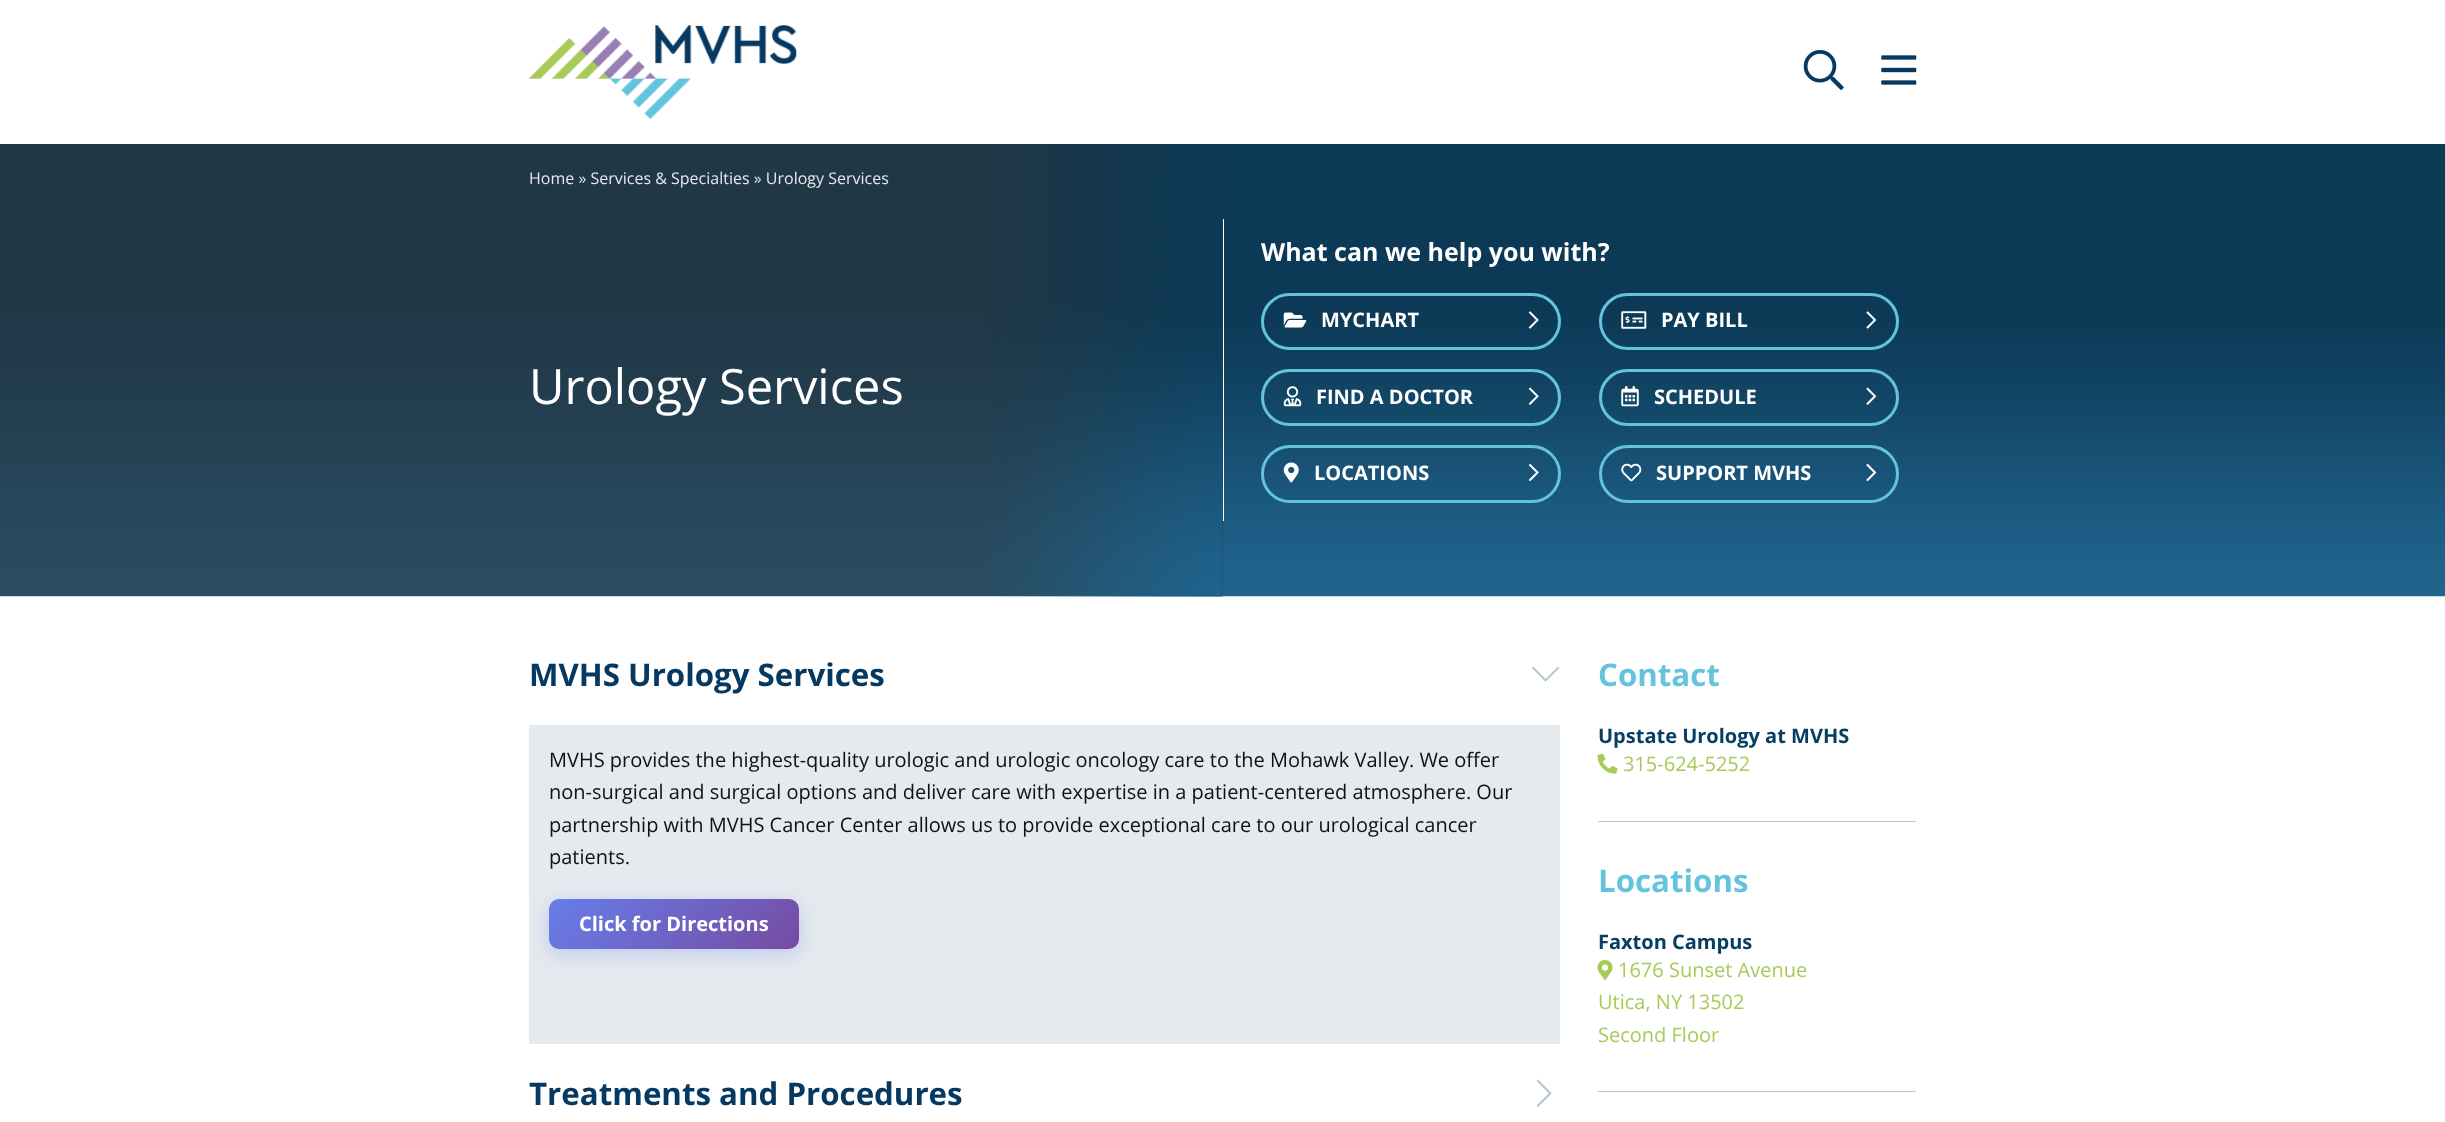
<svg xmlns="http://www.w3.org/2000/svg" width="2445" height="1122">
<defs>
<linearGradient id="g1" gradientUnits="userSpaceOnUse" x1="599" y1="849" x2="749" y2="999"><stop offset="0" stop-color="#667eea"/><stop offset="1" stop-color="#764ba2"/></linearGradient>
</defs>
<rect width="100%" height="100%" fill="#fff"/>
<image x="528" y="25" width="269" height="94" href="media/1.png"/>
<image x="1803" y="50" width="41" height="40" href="media/2.png"/>
<image x="1881" y="55" width="36" height="30" href="media/3.png"/>
<image x="0" y="144" width="2445" height="453" href="media/4.png"/>
<rect y="144" width="1223" height="452" fill="#33363880"/>
<text x="529" y="184" style="font-family:Open Sans;font-size:16px;fill:#e4eaee">Home » Services &amp; Specialties » Urology Services</text>
<image x="989" y="144" width="234" height="453" href="media/5.png"/>
<text x="529" y="404" style="font-family:Open Sans;font-size:48.75px;fill:#fff">Urology Services</text>
<rect x="1223" y="219" width="1" height="302" fill="#fff"/>
<text x="1261" y="261" style="font-family:Open Sans;font-size:25px;font-weight:bold;fill:#fff">What can we help you with?</text>
<rect x="1262.5" y="294.5" width="297" height="54" rx="27" fill="none" stroke="#64c4dd" stroke-width="3"/>
<image x="1283" y="312" width="24" height="16" href="media/6.png"/>
<text x="1321" y="327" style="font-family:Open Sans;font-size:20px;font-weight:bold;fill:#fff">MYCHART</text>
<image x="1528" y="311" width="11" height="18" href="media/7.png"/>
<rect x="1600.5" y="294.5" width="297" height="54" rx="27" fill="none" stroke="#64c4dd" stroke-width="3"/>
<image x="1621" y="311" width="26" height="18" href="media/8.png"/>
<text x="1661" y="327" style="font-family:Open Sans;font-size:20px;font-weight:bold;fill:#fff">PAY BILL</text>
<image x="1866" y="311" width="11" height="18" href="media/9.png"/>
<rect x="1262.5" y="370.5" width="297" height="54" rx="27" fill="none" stroke="#64c4dd" stroke-width="3"/>
<image x="1283" y="386" width="19" height="21" href="media/10.png"/>
<text x="1316" y="404" style="font-family:Open Sans;font-size:20px;font-weight:bold;fill:#fff">FIND A DOCTOR</text>
<image x="1528" y="387" width="11" height="18" href="media/11.png"/>
<rect x="1600.5" y="370.5" width="297" height="54" rx="27" fill="none" stroke="#64c4dd" stroke-width="3"/>
<image x="1621" y="386" width="18" height="21" href="media/12.png"/>
<text x="1654" y="404" style="font-family:Open Sans;font-size:20px;font-weight:bold;fill:#fff">SCHEDULE</text>
<image x="1866" y="387" width="11" height="18" href="media/13.png"/>
<rect x="1262.5" y="446.5" width="297" height="55" rx="27.5" fill="none" stroke="#64c4dd" stroke-width="3"/>
<image x="1283" y="462" width="16" height="21" href="media/14.png"/>
<text x="1314" y="480" style="font-family:Open Sans;font-size:20px;font-weight:bold;fill:#fff">LOCATIONS</text>
<image x="1528" y="463" width="11" height="19" href="media/15.png"/>
<rect x="1600.5" y="446.5" width="297" height="55" rx="27.5" fill="none" stroke="#64c4dd" stroke-width="3"/>
<image x="1621" y="463" width="21" height="19" href="media/16.png"/>
<text x="1656" y="480" style="font-family:Open Sans;font-size:20px;font-weight:bold;fill:#fff">SUPPORT MVHS</text>
<image x="1866" y="463" width="11" height="19" href="media/17.png"/>
<text x="529" y="686" style="font-family:Open Sans;font-size:31.25px;font-weight:bold;fill:#053962">MVHS Urology Services</text>
<image x="1532" y="666" width="28" height="16" href="media/18.png"/>
<rect x="529" y="725" width="1031" height="319" fill="#e4eaee"/>
<text x="549" y="767" style="font-family:Open Sans;font-size:20px;fill:#111">MVHS provides the highest-quality urologic and urologic oncology care to the Mohawk Valley. We offer</text>
<text x="549" y="799" style="font-family:Open Sans;font-size:20px;fill:#111">non-surgical and surgical options and deliver care with expertise in a patient-centered atmosphere. Our</text>
<text x="549" y="832" style="font-family:Open Sans;font-size:20px;fill:#111">partnership with MVHS Cancer Center allows us to provide exceptional care to our urological cancer</text>
<text x="549" y="864" style="font-family:Open Sans;font-size:20px;fill:#111">patients.</text>
<rect x="549" y="904" width="250" height="50" rx="10" fill="#667eea4d" filter="blur(9.5px)"/>
<rect x="549" y="899" width="250" height="50" rx="10" fill="url(#g1)"/>
<text x="579" y="931" style="font-family:Open Sans;font-size:20px;font-weight:bold;fill:#fff">Click for Directions</text>
<text x="529" y="1105" style="font-family:Open Sans;font-size:31.25px;font-weight:bold;fill:#053962">Treatments and Procedures</text>
<image x="1536" y="1079" width="16" height="28" href="media/19.png"/>
<rect x="1598" y="821" width="318" height="1" fill="#b7c7d1"/>
<text x="1598" y="686" style="font-family:Open Sans;font-size:31.25px;font-weight:bold;fill:#64c4dd">Contact</text>
<text x="1598" y="743" style="font-family:Open Sans;font-size:20px;font-weight:bold;fill:#063f62">Upstate Urology at MVHS</text>
<image x="1597" y="753" width="21" height="21" href="media/20.png"/>
<text x="1623" y="771" style="font-family:Open Sans;font-size:20px;fill:#a8ca59">315-624-5252</text>
<rect x="1598" y="1091" width="318" height="1" fill="#b7c7d1"/>
<text x="1598" y="892" style="font-family:Open Sans;font-size:31.25px;font-weight:bold;fill:#64c4dd">Locations</text>
<text x="1598" y="949" style="font-family:Open Sans;font-size:20px;font-weight:bold;fill:#063f62">Faxton Campus</text>
<image x="1597" y="960" width="16" height="20" href="media/21.png"/>
<text x="1618" y="977" style="font-family:Open Sans;font-size:20px;fill:#a8ca59">1676 Sunset Avenue</text>
<text x="1598" y="1009" style="font-family:Open Sans;font-size:20px;fill:#a8ca59">Utica, NY 13502</text>
<text x="1598" y="1042" style="font-family:Open Sans;font-size:20px;fill:#a8ca59">Second Floor</text>
</svg>
